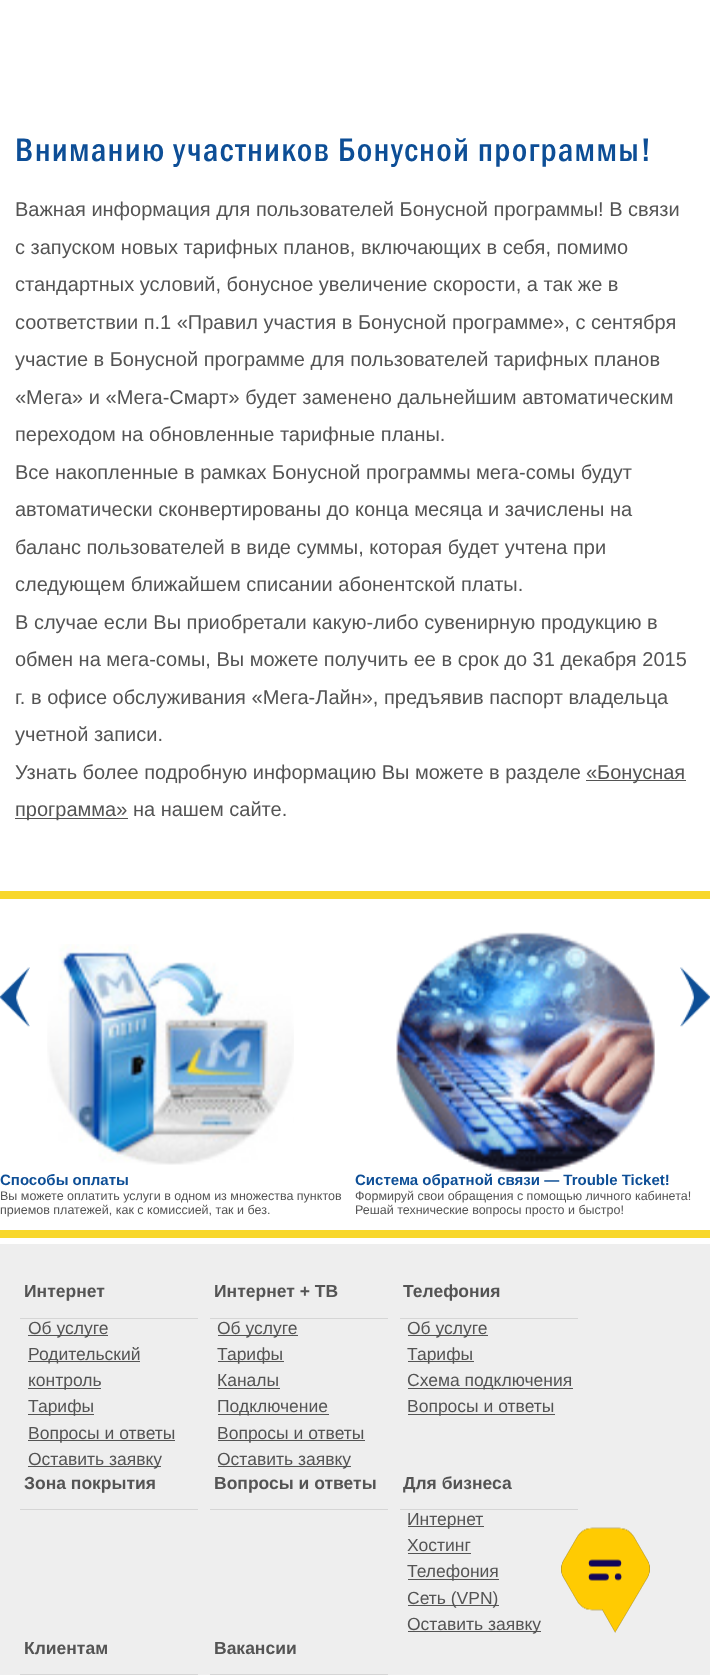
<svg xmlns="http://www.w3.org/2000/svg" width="710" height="1675">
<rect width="100%" height="100%" fill="#fff"/>
<text x="15" y="161" style="font-family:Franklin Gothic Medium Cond;font-size:33.75px;font-weight:500;letter-spacing:1.25px;fill:#0d4e96">Вниманию участников Бонусной программы!</text>
<text x="15" y="216" style="font-family:Liberation Sans;font-size:20px;fill:#545454">Важная информация для пользователей Бонусной программы! В связи</text>
<text x="15" y="254" style="font-family:Liberation Sans;font-size:20px;fill:#545454">с запуском новых тарифных планов, включающих в себя, помимо</text>
<text x="15" y="291" style="font-family:Liberation Sans;font-size:20px;fill:#545454">стандартных условий, бонусное увеличение скорости, а так же в</text>
<text x="15" y="329" style="font-family:Liberation Sans;font-size:20px;fill:#545454">соответствии п.1 «Правил участия в Бонусной программе», с сентября</text>
<text x="15" y="366" style="font-family:Liberation Sans;font-size:20px;fill:#545454">участие в Бонусной программе для пользователей тарифных планов</text>
<text x="15" y="404" style="font-family:Liberation Sans;font-size:20px;fill:#545454">«Мега» и «Мега-Смарт» будет заменено дальнейшим автоматическим</text>
<text x="15" y="441" style="font-family:Liberation Sans;font-size:20px;fill:#545454">переходом на обновленные тарифные планы.</text>
<text x="15" y="479" style="font-family:Liberation Sans;font-size:20px;fill:#545454">Все накопленные в рамках Бонусной программы мега-сомы будут</text>
<text x="15" y="516" style="font-family:Liberation Sans;font-size:20px;fill:#545454">автоматически сконвертированы до конца месяца и зачислены на</text>
<text x="15" y="554" style="font-family:Liberation Sans;font-size:20px;fill:#545454">баланс пользователей в виде суммы, которая будет учтена при</text>
<text x="15" y="591" style="font-family:Liberation Sans;font-size:20px;fill:#545454">следующем ближайшем списании абонентской платы.</text>
<text x="15" y="629" style="font-family:Liberation Sans;font-size:20px;fill:#545454">В случае если Вы приобретали какую-либо сувенирную продукцию в</text>
<text x="15" y="666" style="font-family:Liberation Sans;font-size:20px;fill:#545454">обмен на мега-сомы, Вы можете получить ее в срок до 31 декабря 2015</text>
<text x="15" y="704" style="font-family:Liberation Sans;font-size:20px;fill:#545454">г. в офисе обслуживания «Мега-Лайн», предъявив паспорт владельца</text>
<text x="15" y="741" style="font-family:Liberation Sans;font-size:20px;fill:#545454">учетной записи.</text>
<text x="15" y="779" style="font-family:Liberation Sans;font-size:20px;fill:#545454">Узнать более подробную информацию Вы можете в разделе</text>
<rect x="586" y="780" width="100" height="1" fill="#545454"/>
<text x="586" y="779" style="font-family:Liberation Sans;font-size:20px;fill:#545454">«Бонусная</text>
<rect x="15" y="818" width="113" height="1" fill="#545454"/>
<text x="15" y="816" style="font-family:Liberation Sans;font-size:20px;fill:#545454">программа» на нашем сайте.</text>
<rect y="891" width="710" height="8" fill="#f8d72b"/>
<rect y="1230" width="710" height="8" fill="#f8d72b"/>
<image x="0" y="967" width="30" height="60" href="media/1.png"/>
<image x="680" y="967" width="30" height="60" href="media/2.png"/>
<image x="47" y="944" width="247" height="221" href="media/3.png"/>
<text x="0" y="1185" style="font-family:Liberation Sans;font-size:15px;font-weight:bold;fill:#0d4e96">Способы оплаты</text>
<text x="0" y="1200" style="font-family:Liberation Sans;font-size:12.5px;fill:#545454">Вы можете оплатить услуги в одном из множества пунктов</text>
<text x="0" y="1214" style="font-family:Liberation Sans;font-size:12.5px;fill:#545454">приемов платежей, как с комиссией, так и без.</text>
<image x="396" y="932" width="259" height="240" href="media/4.png"/>
<text x="355" y="1185" style="font-family:Liberation Sans;font-size:15px;font-weight:bold;fill:#0d4e96">Система обратной связи — Trouble Ticket!</text>
<text x="355" y="1200" style="font-family:Liberation Sans;font-size:12.5px;fill:#545454">Формируй свои обращения с помощью личного кабинета!</text>
<text x="355" y="1214" style="font-family:Liberation Sans;font-size:12.5px;fill:#545454">Решай технические вопросы просто и быстро!</text>
<rect y="1244" width="710" height="431" fill="#eee"/>
<text x="24" y="1297" style="font-family:Liberation Sans;font-size:17.5px;font-weight:bold;fill:#545454">Интернет</text>
<rect x="20" y="1318" width="178" height="1" fill="#d5d5d5"/>
<rect x="28" y="1335" width="80" height="1" fill="#545454"/>
<text x="28" y="1334" style="font-family:Liberation Sans;font-size:17.5px;fill:#545454">Об услуге</text>
<rect x="28" y="1361" width="112" height="1" fill="#545454"/>
<text x="28" y="1360" style="font-family:Liberation Sans;font-size:17.5px;fill:#545454">Родительский</text>
<rect x="28" y="1388" width="73" height="1" fill="#545454"/>
<text x="28" y="1386" style="font-family:Liberation Sans;font-size:17.5px;fill:#545454">контроль</text>
<rect x="28" y="1414" width="66" height="1" fill="#545454"/>
<text x="28" y="1412" style="font-family:Liberation Sans;font-size:17.5px;fill:#545454">Тарифы</text>
<rect x="28" y="1440" width="147" height="1" fill="#545454"/>
<text x="28" y="1439" style="font-family:Liberation Sans;font-size:17.5px;fill:#545454">Вопросы и ответы</text>
<rect x="28" y="1466" width="133" height="1" fill="#545454"/>
<text x="28" y="1465" style="font-family:Liberation Sans;font-size:17.5px;fill:#545454">Оставить заявку</text>
<text x="214" y="1297" style="font-family:Liberation Sans;font-size:17.5px;font-weight:bold;fill:#545454">Интернет + ТВ</text>
<rect x="210" y="1318" width="178" height="1" fill="#d5d5d5"/>
<rect x="218" y="1335" width="80" height="1" fill="#545454"/>
<text x="217" y="1334" style="font-family:Liberation Sans;font-size:17.5px;fill:#545454">Об услуге</text>
<rect x="218" y="1361" width="66" height="1" fill="#545454"/>
<text x="217" y="1360" style="font-family:Liberation Sans;font-size:17.5px;fill:#545454">Тарифы</text>
<text x="217" y="1386" style="font-family:Liberation Sans;font-size:17.5px;fill:#545454">Каналы</text>
<rect x="218" y="1388" width="62" height="1" fill="#545454"/>
<rect x="218" y="1414" width="111" height="1" fill="#545454"/>
<text x="217" y="1412" style="font-family:Liberation Sans;font-size:17.5px;fill:#545454">Подключение</text>
<rect x="218" y="1440" width="147" height="1" fill="#545454"/>
<text x="217" y="1439" style="font-family:Liberation Sans;font-size:17.5px;fill:#545454">Вопросы и ответы</text>
<rect x="218" y="1466" width="133" height="1" fill="#545454"/>
<text x="217" y="1465" style="font-family:Liberation Sans;font-size:17.5px;fill:#545454">Оставить заявку</text>
<text x="403" y="1297" style="font-family:Liberation Sans;font-size:17.5px;font-weight:bold;fill:#545454">Телефония</text>
<rect x="400" y="1318" width="178" height="1" fill="#d5d5d5"/>
<rect x="408" y="1335" width="80" height="1" fill="#545454"/>
<text x="407" y="1334" style="font-family:Liberation Sans;font-size:17.5px;fill:#545454">Об услуге</text>
<rect x="408" y="1361" width="66" height="1" fill="#545454"/>
<text x="407" y="1360" style="font-family:Liberation Sans;font-size:17.5px;fill:#545454">Тарифы</text>
<rect x="408" y="1388" width="165" height="1" fill="#545454"/>
<text x="407" y="1386" style="font-family:Liberation Sans;font-size:17.5px;fill:#545454">Схема подключения</text>
<rect x="408" y="1414" width="147" height="1" fill="#545454"/>
<text x="407" y="1412" style="font-family:Liberation Sans;font-size:17.5px;fill:#545454">Вопросы и ответы</text>
<text x="24" y="1489" style="font-family:Liberation Sans;font-size:17.5px;font-weight:bold;fill:#545454">Зона покрытия</text>
<rect x="20" y="1509" width="178" height="1" fill="#d5d5d5"/>
<text x="214" y="1489" style="font-family:Liberation Sans;font-size:17.5px;font-weight:bold;fill:#545454">Вопросы и ответы</text>
<rect x="210" y="1509" width="178" height="1" fill="#d5d5d5"/>
<text x="403" y="1489" style="font-family:Liberation Sans;font-size:17.5px;font-weight:bold;fill:#545454">Для бизнеса</text>
<rect x="400" y="1509" width="178" height="1" fill="#d5d5d5"/>
<rect x="408" y="1526" width="76" height="1" fill="#545454"/>
<text x="407" y="1525" style="font-family:Liberation Sans;font-size:17.5px;fill:#545454">Интернет</text>
<text x="407" y="1551" style="font-family:Liberation Sans;font-size:17.5px;fill:#545454">Хостинг</text>
<rect x="408" y="1553" width="63" height="1" fill="#545454"/>
<rect x="408" y="1579" width="91" height="1" fill="#545454"/>
<text x="407" y="1577" style="font-family:Liberation Sans;font-size:17.5px;fill:#545454">Телефония</text>
<rect x="408" y="1605" width="91" height="1" fill="#545454"/>
<text x="407" y="1604" style="font-family:Liberation Sans;font-size:17.5px;fill:#545454">Сеть (VPN)</text>
<rect x="408" y="1631" width="133" height="1" fill="#545454"/>
<text x="407" y="1630" style="font-family:Liberation Sans;font-size:17.5px;fill:#545454">Оставить заявку</text>
<text x="24" y="1654" style="font-family:Liberation Sans;font-size:17.5px;font-weight:bold;fill:#545454">Клиентам</text>
<rect x="20" y="1674" width="178" height="1" fill="#d5d5d5"/>
<text x="214" y="1654" style="font-family:Liberation Sans;font-size:17.5px;font-weight:bold;fill:#545454">Вакансии</text>
<rect x="210" y="1674" width="178" height="1" fill="#d5d5d5"/>
<image x="561" y="1527" width="89" height="106" href="media/5.png"/>
</svg>
